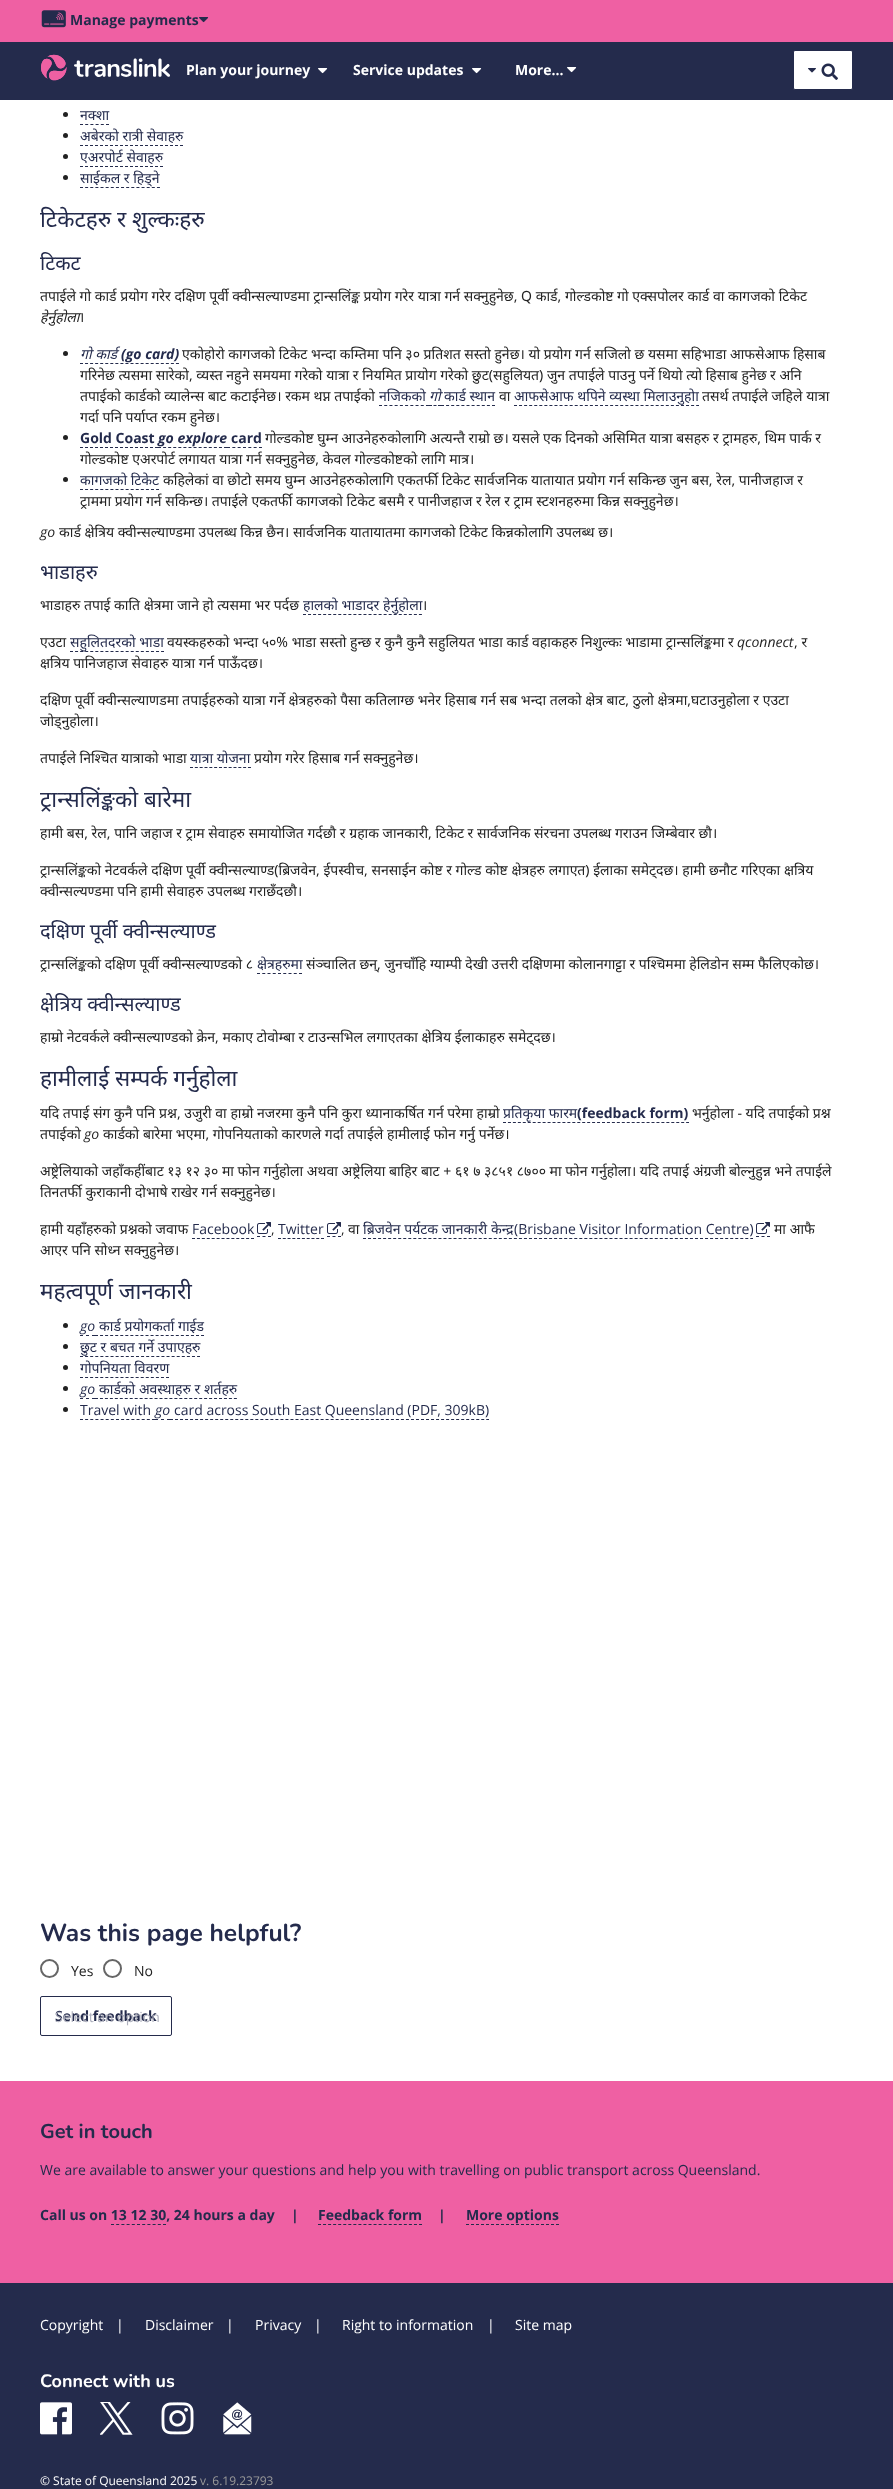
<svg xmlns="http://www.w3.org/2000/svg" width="893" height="2489">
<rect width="100%" height="100%" fill="#fff"/>
<rect y="42" width="893" height="58" fill="#242b4c"/>
<rect width="893" height="42" fill="#ef60a3"/>
<image x="41" y="10" width="25" height="18" href="media/1.png"/>
<text x="70" y="25" style="font-family:Open Sans;font-size:14px;font-weight:bold;fill:#242b4c">Manage payments</text>
<image x="199" y="17" width="10" height="6" href="media/2.png"/>
<image x="41" y="54" width="129" height="27" href="media/3.png"/>
<text x="186" y="75" style="font-family:Open Sans;font-size:14px;font-weight:bold;fill:#fff">Plan your journey</text>
<image x="318" y="68" width="10" height="6" href="media/4.png"/>
<text x="353" y="75" style="font-family:Open Sans;font-size:14px;font-weight:bold;fill:#fff">Service updates</text>
<image x="472" y="68" width="10" height="6" href="media/4.png"/>
<text x="515" y="75" style="font-family:Open Sans;font-size:14px;font-weight:bold;fill:#fff">More...</text>
<image x="567" y="67" width="10" height="6" href="media/4.png"/>
<rect x="793.5" y="50.5" width="59" height="39" rx="1.5" fill="#fff" stroke="#242b4c"/>
<image x="808" y="68" width="8" height="5" href="media/5.png"/>
<image x="821" y="63" width="17" height="17" href="media/6.png"/>
<circle cx="65.5" cy="114.5" r="2.5" fill="#222"/>
<text x="80" y="120" style="font-family:Noto Sans;font-size:14px;fill:#242b4c">नक्शा</text>
<path d="M80 124.5h29" fill="none" stroke="#242b4c" stroke-dasharray="3 2.2"/>
<circle cx="65.5" cy="135.5" r="2.5" fill="#222"/>
<text x="80" y="141" style="font-family:Noto Sans;font-size:14px;fill:#242b4c">अबेरको रात्री सेवाहरु</text>
<path d="M80 145.5h103" fill="none" stroke="#242b4c" stroke-dasharray="3 2"/>
<circle cx="65.5" cy="156.5" r="2.5" fill="#222"/>
<text x="80" y="162" style="font-family:Noto Sans;font-size:14px;fill:#242b4c">एअरपोर्ट सेवाहरु</text>
<path d="M80 166.5h83" fill="none" stroke="#242b4c" stroke-dasharray="3 2"/>
<circle cx="65.5" cy="177.5" r="2.5" fill="#222"/>
<text x="80" y="183" style="font-family:Noto Sans;font-size:14px;fill:#242b4c">साईकल र हिड्ने</text>
<path d="M80 187.5h80" fill="none" stroke="#242b4c" stroke-dasharray="3 2.13"/>
<text x="40" y="227" style="font-family:Noto Sans;font-size:22.5px;fill:#242b4c">टिकेटहरु र शुल्कःहरु</text>
<text x="40" y="270" style="font-family:Noto Sans;font-size:20px;fill:#242b4c">टिकट</text>
<text x="40" y="301" style="font-family:Noto Sans;font-size:14px;fill:#222">तपाईले गो कार्ड प्रयोग गरेर दक्षिण पूर्वी क्वीन्सल्याण्डमा ट्रान्सलिंङ्क प्रयोग गरेर यात्रा गर्न सक्नुहुनेछ, Q कार्ड, गोल्डकोष्ट गो एक्सपोलर कार्ड वा कागजको टिकेट</text>
<text x="40" y="322" style="font-family:Noto Sans;font-size:14px;font-style:italic;fill:#222">हेर्नुहोला</text>
<text x="79" y="322" style="font-family:Noto Sans;font-size:14px;fill:#222">।</text>
<circle cx="65.5" cy="353.5" r="2.5" fill="#222"/>
<text x="80" y="359" style="font-family:Noto Sans;font-size:14px;font-style:italic;fill:#242b4c">गो कार्ड</text>
<text x="121" y="359" style="font-family:Open Sans;font-size:14px;font-weight:bold;font-style:italic;fill:#242b4c">(go card)</text>
<path d="M80 363.5h99" fill="none" stroke="#242b4c" stroke-dasharray="3 2.05"/>
<text x="182" y="359" style="font-family:Noto Sans;font-size:14px;fill:#222">एकोहोरो कागजको टिकेट भन्दा कम्तिमा पनि ३० प्रतिशत सस्तो हुनेछ। यो प्रयोग गर्न सजिलो छ यसमा सहिभाडा आफसेआफ हिसाब</text>
<text x="80" y="380" style="font-family:Noto Sans;font-size:14px;fill:#222">गरिनेछ त्यसमा सारेको, व्यस्त नहुने समयमा गरेको यात्रा र नियमित प्रायोग गरेको छुट(सहुलियत) जुन तपाईले पाउनु पर्ने थियो त्यो हिसाब हुनेछ र अनि</text>
<text x="80" y="401" style="font-family:Noto Sans;font-size:14px;fill:#222">तपाईको कार्डको व्यालेन्स बाट कटाईनेछ। रकम थप्न तपाईको</text>
<text x="379" y="401" style="font-family:Noto Sans;font-size:14px;fill:#242b4c">नजिकको</text>
<path d="M379 405.5h50" fill="none" stroke="#242b4c" stroke-dasharray="3 2.22"/>
<text x="429" y="401" style="font-family:Noto Sans;font-size:14px;font-style:italic;fill:#242b4c">गो</text>
<path d="M429 405.5h3m1.5 0h3m1.5 0h3" fill="none" stroke="#242b4c"/>
<text x="444" y="401" style="font-family:Noto Sans;font-size:14px;fill:#242b4c">कार्ड स्थान</text>
<path d="M441 405.5h54" fill="none" stroke="#242b4c" stroke-dasharray="3 2.1"/>
<text x="499" y="401" style="font-family:Noto Sans;font-size:14px;fill:#222">वा</text>
<text x="514" y="401" style="font-family:Noto Sans;font-size:14px;fill:#242b4c">आफसेआफ थपिने व्यस्था मिलाउनुहोा</text>
<path d="M514 405.5h185" fill="none" stroke="#242b4c" stroke-dasharray="3 2.06"/>
<text x="702" y="401" style="font-family:Noto Sans;font-size:14px;fill:#222">तसर्थ तपाईले जहिले यात्रा</text>
<text x="80" y="422" style="font-family:Noto Sans;font-size:14px;fill:#222">गर्दा पनि पर्याप्त रकम हुनेछ।</text>
<circle cx="65.5" cy="437.5" r="2.5" fill="#222"/>
<text x="80" y="443" style="font-family:Open Sans;font-size:14px;font-weight:bold;fill:#242b4c">Gold Coast</text>
<text x="158" y="443" style="font-family:Open Sans;font-size:14px;font-weight:bold;font-style:italic;fill:#242b4c">go explore</text>
<path d="M80 447.5h78" fill="none" stroke="#242b4c" stroke-dasharray="3 2"/>
<path d="M158 447.5h69" fill="none" stroke="#242b4c" stroke-dasharray="3 2.08"/>
<path d="M227 447.5h35" fill="none" stroke="#242b4c" stroke-dasharray="3 2.33"/>
<text x="231" y="443" style="font-family:Open Sans;font-size:14px;font-weight:bold;fill:#242b4c">card</text>
<text x="265" y="443" style="font-family:Noto Sans;font-size:14px;fill:#222">गोल्डकोष्ट घुम्न आउनेहरुकोलागि अत्यन्तै राम्रो छ। यसले एक दिनको असिमित यात्रा बसहरु र ट्रामहरु, थिम पार्क र</text>
<text x="80" y="464" style="font-family:Noto Sans;font-size:14px;fill:#222">गोल्डकोष्ट एअरपोर्ट लगायत यात्रा गर्न सक्नुहुनेछ, केवल गोल्डकोष्टको लागि मात्र।</text>
<circle cx="65.5" cy="479.5" r="2.5" fill="#222"/>
<text x="80" y="485" style="font-family:Noto Sans;font-size:14px;fill:#242b4c">कागजको टिकेट</text>
<path d="M80 489.5h79" fill="none" stroke="#242b4c" stroke-dasharray="3 2.07"/>
<text x="163" y="485" style="font-family:Noto Sans;font-size:14px;fill:#222">कहिलेकां वा छोटो समय घुम्न आउनेहरुकोलागि एकतर्फी टिकेट सार्वजनिक यातायात प्रयोग गर्न सकिन्छ जुन बस, रेल, पानीजहाज र</text>
<text x="80" y="506" style="font-family:Noto Sans;font-size:14px;fill:#222">ट्राममा प्रयोग गर्न सकिन्छ। तपाईले एकतर्फी कागजको टिकेट बसमै र पानीजहाज र रेल र ट्राम स्टशनहरुमा किन्न सक्नुहुनेछ।</text>
<text x="40" y="537" style="font-family:Open Sans;font-size:14px;font-style:italic;fill:#222">go</text>
<text x="59" y="537" style="font-family:Noto Sans;font-size:14px;fill:#222">कार्ड क्षेत्रिय क्वीन्सल्याण्डमा उपलब्ध किन्न छैन। सार्वजनिक यातायातमा कागजको टिकेट किन्नकोलागि उपलब्ध छ।</text>
<text x="40" y="579" style="font-family:Noto Sans;font-size:20px;fill:#242b4c">भाडाहरु</text>
<text x="40" y="610" style="font-family:Noto Sans;font-size:14px;fill:#222">भाडाहरु तपाई काति क्षेत्रमा जाने हो त्यसमा भर पर्दछ</text>
<text x="303" y="610" style="font-family:Noto Sans;font-size:14px;fill:#242b4c">हालको भाडादर हेर्नुहोला</text>
<path d="M303 614.5h119" fill="none" stroke="#242b4c" stroke-dasharray="3 2.04"/>
<text x="422" y="610" style="font-family:Noto Sans;font-size:14px;fill:#222">।</text>
<text x="40" y="647" style="font-family:Noto Sans;font-size:14px;fill:#222">एउटा</text>
<path d="M70 651.5h94" fill="none" stroke="#242b4c" stroke-dasharray="3 2.06"/>
<text x="70" y="647" style="font-family:Noto Sans;font-size:14px;fill:#242b4c">सहुलितदरको भाडा</text>
<text x="167" y="647" style="font-family:Noto Sans;font-size:14px;fill:#222">वयस्कहरुको भन्दा ५०% भाडा सस्तो हुन्छ र कुनै कुनै सहुलियत भाडा कार्ड वहाकहरु निशुल्कः भाडामा ट्रान्सलिंङ्कमा र</text>
<text x="737" y="647" style="font-family:Open Sans;font-size:14px;font-style:italic;fill:#222">qconnect</text>
<text x="794" y="647" style="font-family:Noto Sans;font-size:14px;fill:#222">, र</text>
<text x="40" y="668" style="font-family:Noto Sans;font-size:14px;fill:#222">क्षत्रिय पानिजहाज सेवाहरु यात्रा गर्न पाऊँदछ।</text>
<text x="40" y="705" style="font-family:Noto Sans;font-size:14px;fill:#222">दक्षिण पूर्वी क्वीन्सल्याणडमा तपाईहरुको यात्रा गर्ने क्षेत्रहरुको पैसा कतिलाग्छ भनेर हिसाब गर्न सब भन्दा तलको क्षेत्र बाट, ठुलो क्षेत्रमा,घटाउनुहोला र एउटा</text>
<text x="40" y="726" style="font-family:Noto Sans;font-size:14px;fill:#222">जोड्नुहोला।</text>
<text x="40" y="763" style="font-family:Noto Sans;font-size:14px;fill:#222">तपाईले निश्चित यात्राको भाडा</text>
<text x="190" y="763" style="font-family:Noto Sans;font-size:14px;fill:#242b4c">यात्रा योजना</text>
<path d="M190 767.5h61" fill="none" stroke="#242b4c" stroke-dasharray="3 1.83"/>
<text x="254" y="763" style="font-family:Noto Sans;font-size:14px;fill:#222">प्रयोग गरेर हिसाब गर्न सक्नुहुनेछ।</text>
<text x="40" y="807" style="font-family:Noto Sans;font-size:22.5px;fill:#242b4c">ट्रान्सलिंङ्कको बारेमा</text>
<text x="40" y="838" style="font-family:Noto Sans;font-size:14px;fill:#222">हामी बस, रेल, पानि जहाज र ट्राम सेवाहरु समायोजित गर्दछौ र ग्रहाक जानकारी, टिकेट र सार्वजनिक संरचना उपलब्ध गराउन जिम्बेवार छौ।</text>
<text x="40" y="875" style="font-family:Noto Sans;font-size:14px;fill:#222">ट्रान्सलिंङ्कको नेटवर्कले दक्षिण पूर्वी क्वीन्सल्याण्ड(ब्रिजवेन, ईपस्वीच, सनसाईन कोष्ट र गोल्ड कोष्ट क्षेत्रहरु लगाएत) ईलाका समेट्दछ। हामी छनौट गरिएका क्षत्रिय</text>
<text x="40" y="896" style="font-family:Noto Sans;font-size:14px;fill:#222">क्वीन्सल्यण्डमा पनि हामी सेवाहरु उपलब्ध गराछँदछौ।</text>
<text x="40" y="938" style="font-family:Noto Sans;font-size:20px;fill:#242b4c">दक्षिण पूर्वी क्वीन्सल्याण्ड</text>
<text x="40" y="969" style="font-family:Noto Sans;font-size:14px;fill:#222">ट्रान्सलिंङ्कको दक्षिण पूर्वी क्वीन्सल्याण्डको ८</text>
<text x="257" y="969" style="font-family:Noto Sans;font-size:14px;fill:#242b4c">क्षेत्रहरुमा</text>
<path d="M257 973.5h45" fill="none" stroke="#242b4c" stroke-dasharray="3 2.25"/>
<text x="306" y="969" style="font-family:Noto Sans;font-size:14px;fill:#222">संञ्चालित छन्, जुनचाँहि ग्याम्पी देखी उत्तरी दक्षिणमा कोलानगाट्टा र पश्चिममा हेलिडोन सम्म फैलिएकोछ।</text>
<text x="40" y="1011" style="font-family:Noto Sans;font-size:20px;fill:#242b4c">क्षेत्रिय क्वीन्सल्याण्ड</text>
<text x="40" y="1042" style="font-family:Noto Sans;font-size:14px;fill:#222">हाम्रो नेटवर्कले क्वीन्सल्याण्डको क्रेन, मकाए टोवोम्बा र टाउन्सभिल लगाएतका क्षेत्रिय ईलाकाहरु समेट्दछ।</text>
<text x="40" y="1086" style="font-family:Noto Sans;font-size:22.5px;fill:#242b4c">हामीलाई सम्पर्क गर्नुहोला</text>
<text x="40" y="1118" style="font-family:Noto Sans;font-size:14px;fill:#222">यदि तपाई संग कुनै पनि प्रश्न, उजुरी वा हाम्रो नजरमा कुनै पनि कुरा ध्यानाकर्षित गर्न परेमा हाम्रो</text>
<text x="503" y="1118" style="font-family:Noto Sans;font-size:14px;fill:#242b4c">प्रतिकृया फारम</text>
<text x="577" y="1118" style="font-family:Open Sans;font-size:14px;font-weight:bold;fill:#242b4c">(feedback form)</text>
<path d="M503 1122.5h186" fill="none" stroke="#242b4c" stroke-dasharray="3 1.95"/>
<text x="692" y="1118" style="font-family:Noto Sans;font-size:14px;fill:#222">भर्नुहोला - यदि तपाईको प्रश्न</text>
<text x="40" y="1139" style="font-family:Noto Sans;font-size:14px;fill:#222">तपाईको</text>
<text x="84" y="1139" style="font-family:Open Sans;font-size:14px;font-style:italic;fill:#222">go</text>
<text x="103" y="1139" style="font-family:Noto Sans;font-size:14px;fill:#222">कार्डको बारेमा भएमा, गोपनियताको कारणले गर्दा तपाईले हामीलाई फोन गर्नु पर्नेछ।</text>
<text x="40" y="1176" style="font-family:Noto Sans;font-size:14px;fill:#222">अष्ट्रेलियाको जहाँकहींबाट १३ १२ ३० मा फोन गर्नुहोला अथवा अष्ट्रेलिया बाहिर ‌बाट + ‌६१ ७ ३८५१ ८७०० मा फोन गर्नुहोला। यदि तपाई अंग्रजी बोल्नुहुन्न भने तपाईले</text>
<text x="40" y="1197" style="font-family:Noto Sans;font-size:14px;fill:#222">तिनतर्फी कुराकानी दोभाषे राखेर गर्न सक्नुहुनेछ।</text>
<text x="40" y="1234" style="font-family:Noto Sans;font-size:14px;fill:#222">हामी यहाँहरुको प्रश्नको जवाफ</text>
<path d="M192 1238.5h62" fill="none" stroke="#242b4c" stroke-dasharray="3 1.92"/>
<path d="M257 1236.5h3m2.5 0h3m2.5 0h3" fill="none" stroke="#242b4c"/>
<text x="192" y="1234" style="font-family:Open Sans;font-size:14px;fill:#242b4c">Facebook</text>
<image x="257" y="1222" width="14" height="12" href="media/7.png"/>
<text x="271" y="1234" style="font-family:Open Sans;font-size:14px;fill:#222">,</text>
<path d="M278 1238.5h46" fill="none" stroke="#242b4c" stroke-dasharray="3 1.78"/>
<path d="M327 1236.5h3m2.5 0h3m2.5 0h3" fill="none" stroke="#242b4c"/>
<text x="278" y="1234" style="font-family:Open Sans;font-size:14px;fill:#242b4c">Twitter</text>
<image x="327" y="1222" width="14" height="12" href="media/7.png"/>
<text x="341" y="1234" style="font-family:Open Sans;font-size:14px;fill:#222">,</text>
<text x="348" y="1234" style="font-family:Noto Sans;font-size:14px;fill:#222">वा</text>
<path d="M363 1238.5h390" fill="none" stroke="#242b4c" stroke-dasharray="3 2.03"/>
<path d="M756 1236.5h3m2.5 0h3m2.5 0h3" fill="none" stroke="#242b4c"/>
<text x="363" y="1234" style="font-family:Noto Sans;font-size:14px;fill:#242b4c">ब्रिजवेन पर्यटक जानकारी केन्द्र</text>
<text x="514" y="1234" style="font-family:Open Sans;font-size:14px;fill:#242b4c">(Brisbane Visitor Information Centre)</text>
<image x="756" y="1222" width="14" height="12" href="media/7.png"/>
<text x="774" y="1234" style="font-family:Noto Sans;font-size:14px;fill:#222">मा आफै</text>
<text x="40" y="1255" style="font-family:Noto Sans;font-size:14px;fill:#222">आएर पनि सोध्न सक्नुहुनेछ।</text>
<text x="40" y="1299" style="font-family:Noto Sans;font-size:22.5px;fill:#242b4c">महत्वपूर्ण जानकारी</text>
<circle cx="65.5" cy="1325.5" r="2.5" fill="#222"/>
<text x="80" y="1331" style="font-family:Open Sans;font-size:14px;font-style:italic;fill:#242b4c">go</text>
<path d="M80 1335.5h3m3 0h3m3 0h3" fill="none" stroke="#242b4c"/>
<path d="M95 1335.5h109" fill="none" stroke="#242b4c" stroke-dasharray="3 2.05"/>
<text x="99" y="1331" style="font-family:Noto Sans;font-size:14px;fill:#242b4c">कार्ड प्रयोगकर्ता गाईड</text>
<circle cx="65.5" cy="1346.5" r="2.5" fill="#222"/>
<text x="80" y="1352" style="font-family:Noto Sans;font-size:14px;fill:#242b4c">छुट र बचत गर्ने उपाएहरु</text>
<path d="M80 1356.5h120" fill="none" stroke="#242b4c" stroke-dasharray="3 2.09"/>
<circle cx="65.5" cy="1367.5" r="2.5" fill="#222"/>
<text x="80" y="1373" style="font-family:Noto Sans;font-size:14px;fill:#242b4c">गोपनियता विवरण</text>
<path d="M80 1377.5h89" fill="none" stroke="#242b4c" stroke-dasharray="3 2.06"/>
<circle cx="65.5" cy="1388.5" r="2.5" fill="#222"/>
<text x="80" y="1394" style="font-family:Open Sans;font-size:14px;font-style:italic;fill:#242b4c">go</text>
<path d="M80 1398.5h3m3 0h3m3 0h3" fill="none" stroke="#242b4c"/>
<path d="M95 1398.5h142" fill="none" stroke="#242b4c" stroke-dasharray="3 1.96"/>
<text x="99" y="1394" style="font-family:Noto Sans;font-size:14px;fill:#242b4c">कार्डको अवस्थाहरु र शर्तहरु</text>
<circle cx="65.5" cy="1409.5" r="2.5" fill="#222"/>
<text x="80" y="1415" style="font-family:Open Sans;font-size:14px;fill:#242b4c">Travel with</text>
<text x="155" y="1415" style="font-family:Open Sans;font-size:14px;font-style:italic;fill:#242b4c">go</text>
<path d="M80 1419.5h75" fill="none" stroke="#242b4c" stroke-dasharray="3 2.14"/>
<path d="M155 1419.5h3m3 0h3m3 0h3" fill="none" stroke="#242b4c"/>
<path d="M170 1419.5h319" fill="none" stroke="#242b4c" stroke-dasharray="3 2.02"/>
<text x="174" y="1415" style="font-family:Open Sans;font-size:14px;fill:#242b4c">card across South East Queensland (PDF, 309kB)</text>
<text x="40" y="1941" style="font-family:Nunito;font-size:24.5px;font-weight:bold;fill:#242b4c">Was this page helpful?</text>
<circle cx="49.5" cy="1968.5" r="8.5" fill="none" stroke="#666" stroke-width="2"/>
<text x="71" y="1976" style="font-family:Open Sans;font-size:14px;fill:#222">Yes</text>
<circle cx="112.5" cy="1968.5" r="8.5" fill="none" stroke="#666" stroke-width="2"/>
<text x="134" y="1976" style="font-family:Open Sans;font-size:14px;fill:#222">No</text>
<rect x="40.5" y="1996.5" width="131" height="39" rx="1.5" fill="none" stroke="#242b4c"/>
<text x="55" y="2021" style="font-family:Open Sans;font-size:14px;font-weight:bold;fill:#242b4c">Send feedback</text>
<text x="55" y="2022" style="font-family:Open Sans;font-size:14px;fill:#aeb0bd">Select an option</text>
<rect y="2283" width="893" height="206" fill="#242b4c"/>
<rect y="2081" width="893" height="202" fill="#ef60a3"/>
<text x="40" y="2138" style="font-family:Nunito;font-size:20px;font-weight:bold;fill:#242b4c">Get in touch</text>
<text x="40" y="2175" style="font-family:Open Sans;font-size:14px;fill:#242b4c">We are available to answer your questions and help you with travelling on public transport across Queensland.</text>
<text x="40" y="2220" style="font-family:Open Sans;font-size:14px;font-weight:bold;fill:#242b4c">Call us on 13 12 30, 24 hours a day</text>
<text x="291" y="2220" style="font-family:Open Sans;font-size:14px;font-weight:bold;fill:#242b4c">|</text>
<path d="M111 2224.5h55" fill="none" stroke="#242b4c" stroke-dasharray="3 2.2"/>
<text x="318" y="2220" style="font-family:Open Sans;font-size:14px;font-weight:bold;fill:#242b4c">Feedback form</text>
<path d="M318 2224.5h104" fill="none" stroke="#242b4c" stroke-dasharray="3 2.05"/>
<text x="438" y="2220" style="font-family:Open Sans;font-size:14px;font-weight:bold;fill:#242b4c">|</text>
<text x="466" y="2220" style="font-family:Open Sans;font-size:14px;font-weight:bold;fill:#242b4c">More options</text>
<path d="M466 2224.5h93" fill="none" stroke="#242b4c" stroke-dasharray="3 2"/>
<text x="40" y="2330" style="font-family:Open Sans;font-size:14px;fill:#fff">Copyright</text>
<text x="116" y="2330" style="font-family:Open Sans;font-size:14px;fill:#fff">|</text>
<text x="145" y="2330" style="font-family:Open Sans;font-size:14px;fill:#fff">Disclaimer</text>
<text x="226" y="2330" style="font-family:Open Sans;font-size:14px;fill:#fff">|</text>
<text x="255" y="2330" style="font-family:Open Sans;font-size:14px;fill:#fff">Privacy</text>
<text x="314" y="2330" style="font-family:Open Sans;font-size:14px;fill:#fff">|</text>
<text x="342" y="2330" style="font-family:Open Sans;font-size:14px;fill:#fff">Right to information</text>
<text x="487" y="2330" style="font-family:Open Sans;font-size:14px;fill:#fff">|</text>
<text x="515" y="2330" style="font-family:Open Sans;font-size:14px;fill:#fff">Site map</text>
<text x="40" y="2387" style="font-family:Nunito;font-size:18px;font-weight:bold;fill:#fff">Connect with us</text>
<image x="40" y="2402" width="32" height="33" href="media/8.png"/>
<image x="100" y="2402" width="33" height="33" href="media/9.png"/>
<image x="161" y="2402" width="33" height="33" href="media/10.png"/>
<image x="223" y="2402" width="29" height="33" href="media/11.png"/>
<text x="40" y="2485" style="font-family:Open Sans;font-size:12px;fill:#fff">© State of Queensland 2025</text>
<text x="200" y="2485" style="font-family:Open Sans;font-size:12px;fill:#999">v. 6.19.23793</text>
</svg>
